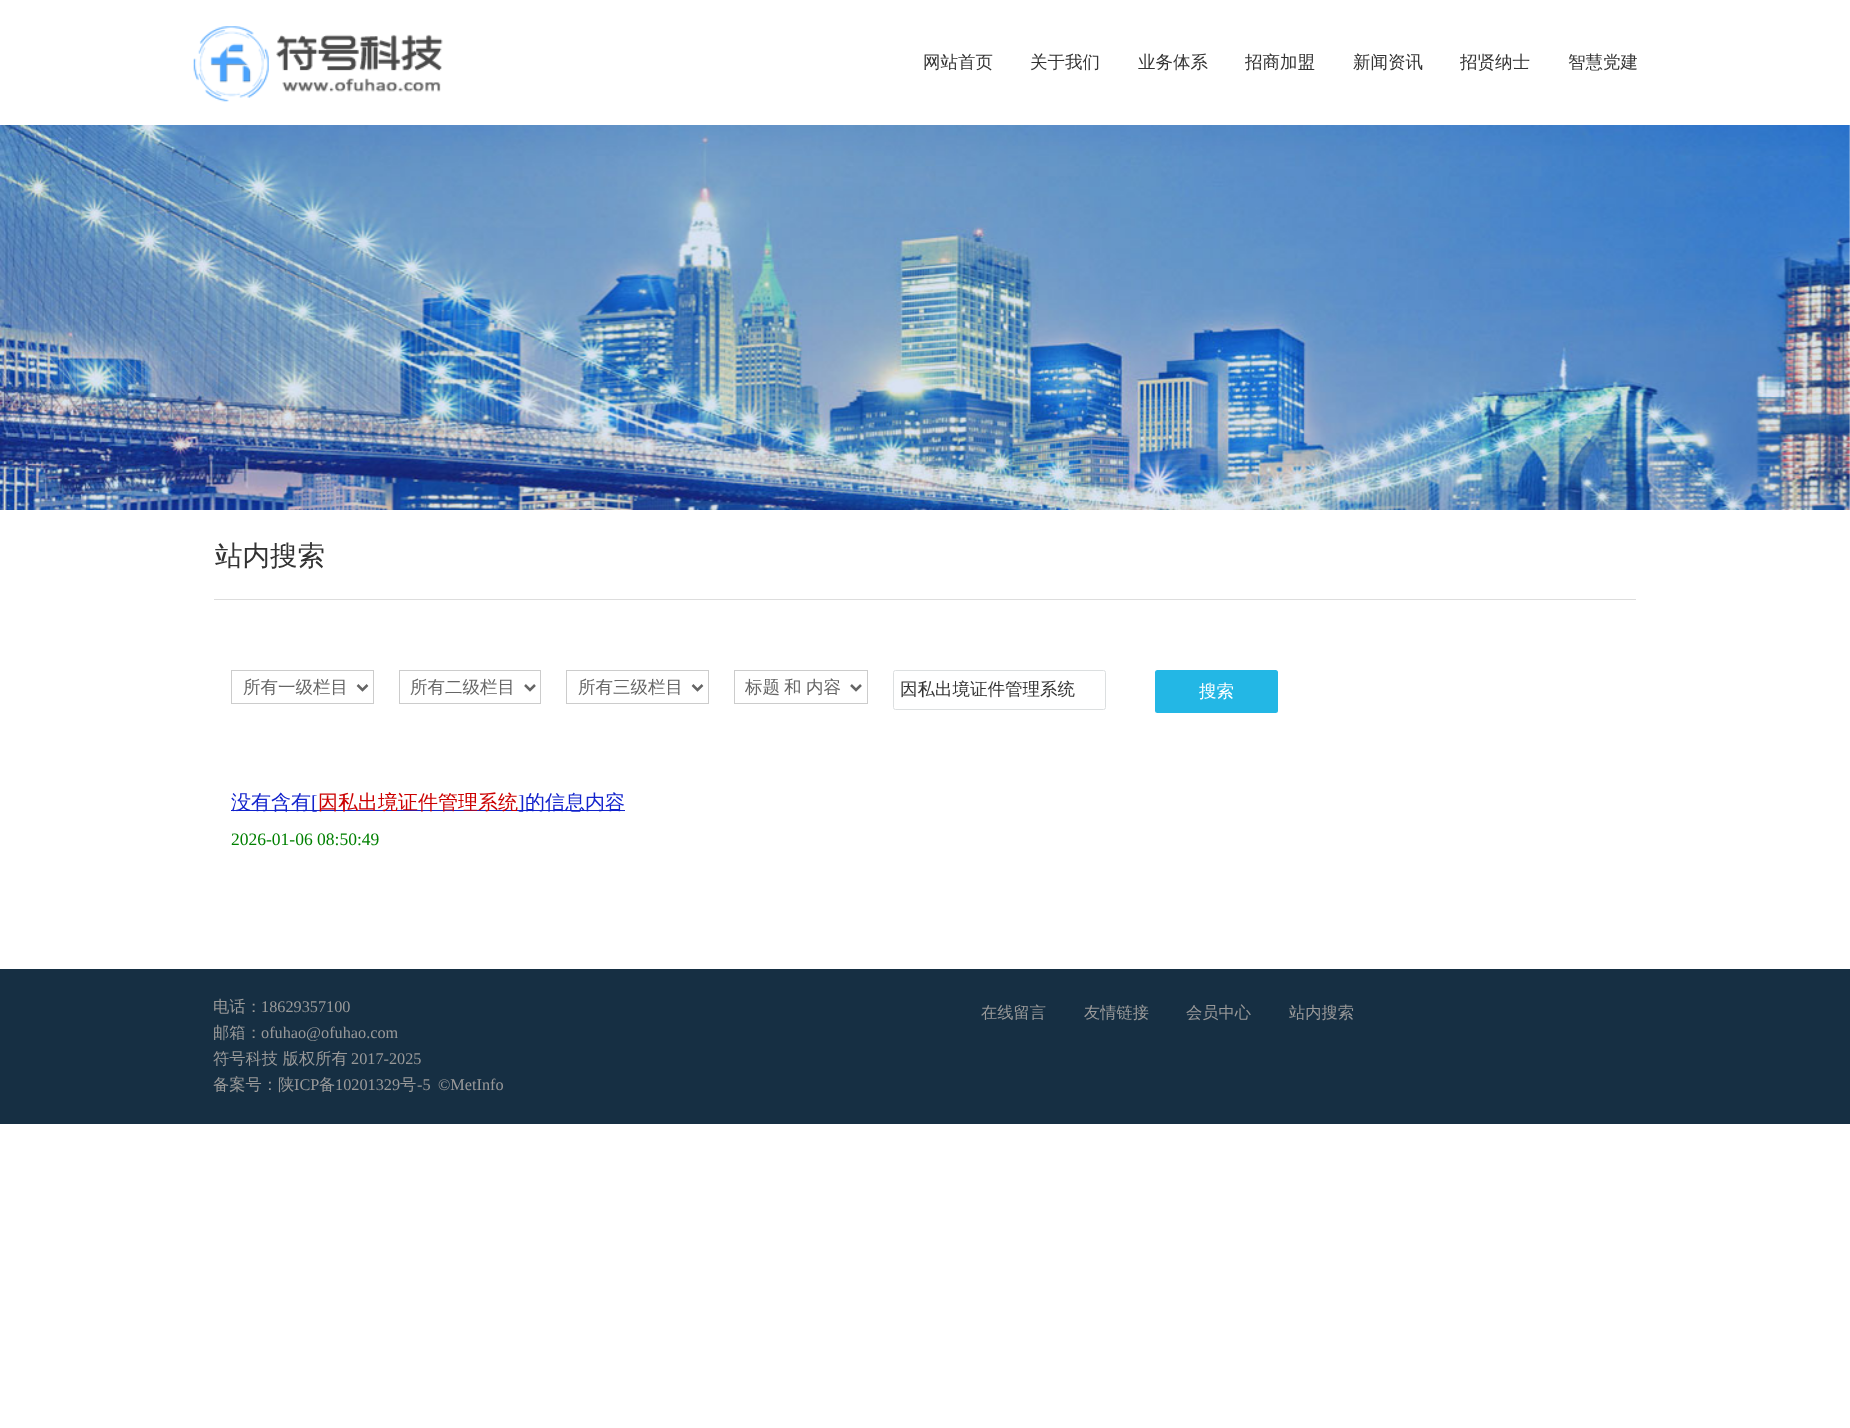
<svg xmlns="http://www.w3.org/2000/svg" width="1850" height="1428">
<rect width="100%" height="100%" fill="#fff"/>
<image x="193" y="26" width="250" height="76" href="media/1.png"/>
<text x="923" y="68" style="font-family:WenQuanYi Zen Hei;font-size:17.5px;font-weight:500;fill:#333">网站首页</text>
<text x="1030" y="68" style="font-family:WenQuanYi Zen Hei;font-size:17.5px;font-weight:500;fill:#333">关于我们</text>
<text x="1138" y="68" style="font-family:WenQuanYi Zen Hei;font-size:17.5px;font-weight:500;fill:#333">业务体系</text>
<text x="1245" y="68" style="font-family:WenQuanYi Zen Hei;font-size:17.5px;font-weight:500;fill:#333">招商加盟</text>
<text x="1353" y="68" style="font-family:WenQuanYi Zen Hei;font-size:17.5px;font-weight:500;fill:#333">新闻资讯</text>
<text x="1460" y="68" style="font-family:WenQuanYi Zen Hei;font-size:17.5px;font-weight:500;fill:#333">招贤纳士</text>
<text x="1568" y="68" style="font-family:WenQuanYi Zen Hei;font-size:17.5px;font-weight:500;fill:#333">智慧党建</text>
<image x="0" y="125" width="1850" height="385" href="media/2.png"/>
<rect x="214" y="599" width="1422" height="1" fill="#ddd"/>
<text x="215" y="565" style="font-family:WenQuanYi Zen Hei;font-size:27.5px;font-weight:500;fill:#333">站内搜索</text>
<rect x="231.5" y="670.5" width="142" height="33" fill="none" stroke="#ccc"/>
<path d="M357.5 685l5 5l5-5" fill="none" stroke="#656565" stroke-width="2.5"/>
<text x="243" y="693" style="font-family:WenQuanYi Zen Hei;font-size:17.5px;font-weight:500;fill:#656565">所有一级栏目</text>
<rect x="399.5" y="670.5" width="141" height="33" fill="none" stroke="#ccc"/>
<path d="M525 685l5 5l5-5" fill="none" stroke="#656565" stroke-width="2.5"/>
<text x="410" y="693" style="font-family:WenQuanYi Zen Hei;font-size:17.5px;font-weight:500;fill:#656565">所有二级栏目</text>
<rect x="566.5" y="670.5" width="142" height="33" fill="none" stroke="#ccc"/>
<path d="M692.5 685l5 5l5-5" fill="none" stroke="#656565" stroke-width="2.5"/>
<text x="578" y="693" style="font-family:WenQuanYi Zen Hei;font-size:17.5px;font-weight:500;fill:#656565">所有三级栏目</text>
<rect x="734.5" y="670.5" width="133" height="33" fill="none" stroke="#ccc"/>
<path d="M851 685l5 5l5-5" fill="none" stroke="#656565" stroke-width="2.5"/>
<text x="745" y="693" style="font-family:WenQuanYi Zen Hei;font-size:17.5px;font-weight:500;fill:#656565">标题</text>
<text x="784" y="693" style="font-family:WenQuanYi Zen Hei;font-size:17.5px;font-weight:500;fill:#656565">和</text>
<text x="806" y="693" style="font-family:WenQuanYi Zen Hei;font-size:17.5px;font-weight:500;fill:#656565">内容</text>
<rect x="893.5" y="670.5" width="212" height="39" rx="2" fill="none" stroke="#dcdfe0"/>
<text x="900" y="695" style="font-family:WenQuanYi Zen Hei;font-size:17.5px;font-weight:500;fill:#333">因私出境证件管理系统</text>
<rect x="1155" y="670" width="123" height="43" rx="2.5" fill="#23b7e5"/>
<text x="1199" y="697" style="font-family:WenQuanYi Zen Hei;font-size:17.5px;font-weight:500;fill:#fff">搜索</text>
<rect x="231" y="810" width="394" height="1" fill="#12c"/>
<text x="231" y="809" style="font-family:WenQuanYi Zen Hei;font-size:20px;font-weight:500;fill:#12c">没有含有</text>
<text x="311" y="809" style="font-family:Liberation Serif;font-size:20px;fill:#12c">[</text>
<text x="318" y="809" style="font-family:WenQuanYi Zen Hei;font-size:20px;font-weight:500;fill:#c00">因私出境证件管理系统</text>
<text x="518" y="809" style="font-family:Liberation Serif;font-size:20px;fill:#12c">]</text>
<text x="525" y="809" style="font-family:WenQuanYi Zen Hei;font-size:20px;font-weight:500;fill:#12c">的信息内容</text>
<text x="231" y="845" style="font-family:Liberation Serif;font-size:17.5px;fill:#008000">2026-01-06 08:50:49</text>
<rect y="969" width="1850" height="155" fill="#162f43"/>
<text x="213" y="1012" style="font-family:WenQuanYi Zen Hei;font-size:16.25px;font-weight:500;fill:#999">电话：</text>
<text x="261" y="1012" style="font-family:Liberation Serif;font-size:16.25px;fill:#999">18629357100</text>
<text x="213" y="1038" style="font-family:WenQuanYi Zen Hei;font-size:16.25px;font-weight:500;fill:#999">邮箱：</text>
<text x="261" y="1038" style="font-family:Liberation Serif;font-size:16.25px;fill:#999">ofuhao@ofuhao.com</text>
<text x="213" y="1064" style="font-family:WenQuanYi Zen Hei;font-size:16.25px;font-weight:500;fill:#999">符号科技 版权所有</text>
<text x="351" y="1064" style="font-family:Liberation Serif;font-size:16.25px;fill:#999">2017-2025</text>
<text x="213" y="1090" style="font-family:WenQuanYi Zen Hei;font-size:16.25px;font-weight:500;fill:#999">备案号：陕</text>
<text x="294" y="1090" style="font-family:Liberation Serif;font-size:16.25px;fill:#999">ICP</text>
<text x="319" y="1090" style="font-family:WenQuanYi Zen Hei;font-size:16.25px;font-weight:500;fill:#999">备</text>
<text x="335" y="1090" style="font-family:Liberation Serif;font-size:16.25px;fill:#999">10201329</text>
<text x="400" y="1090" style="font-family:WenQuanYi Zen Hei;font-size:16.25px;font-weight:500;fill:#999">号</text>
<text x="417" y="1090" style="font-family:Liberation Serif;font-size:16.25px;fill:#999">-5</text>
<text x="438" y="1090" style="font-family:Liberation Serif;font-size:16.25px;fill:#999">©MetInfo</text>
<text x="981" y="1018" style="font-family:WenQuanYi Zen Hei;font-size:16.25px;font-weight:500;fill:#999">在线留言</text>
<text x="1084" y="1018" style="font-family:WenQuanYi Zen Hei;font-size:16.25px;font-weight:500;fill:#999">友情链接</text>
<text x="1186" y="1018" style="font-family:WenQuanYi Zen Hei;font-size:16.25px;font-weight:500;fill:#999">会员中心</text>
<text x="1289" y="1018" style="font-family:WenQuanYi Zen Hei;font-size:16.25px;font-weight:500;fill:#999">站内搜索</text>
</svg>
